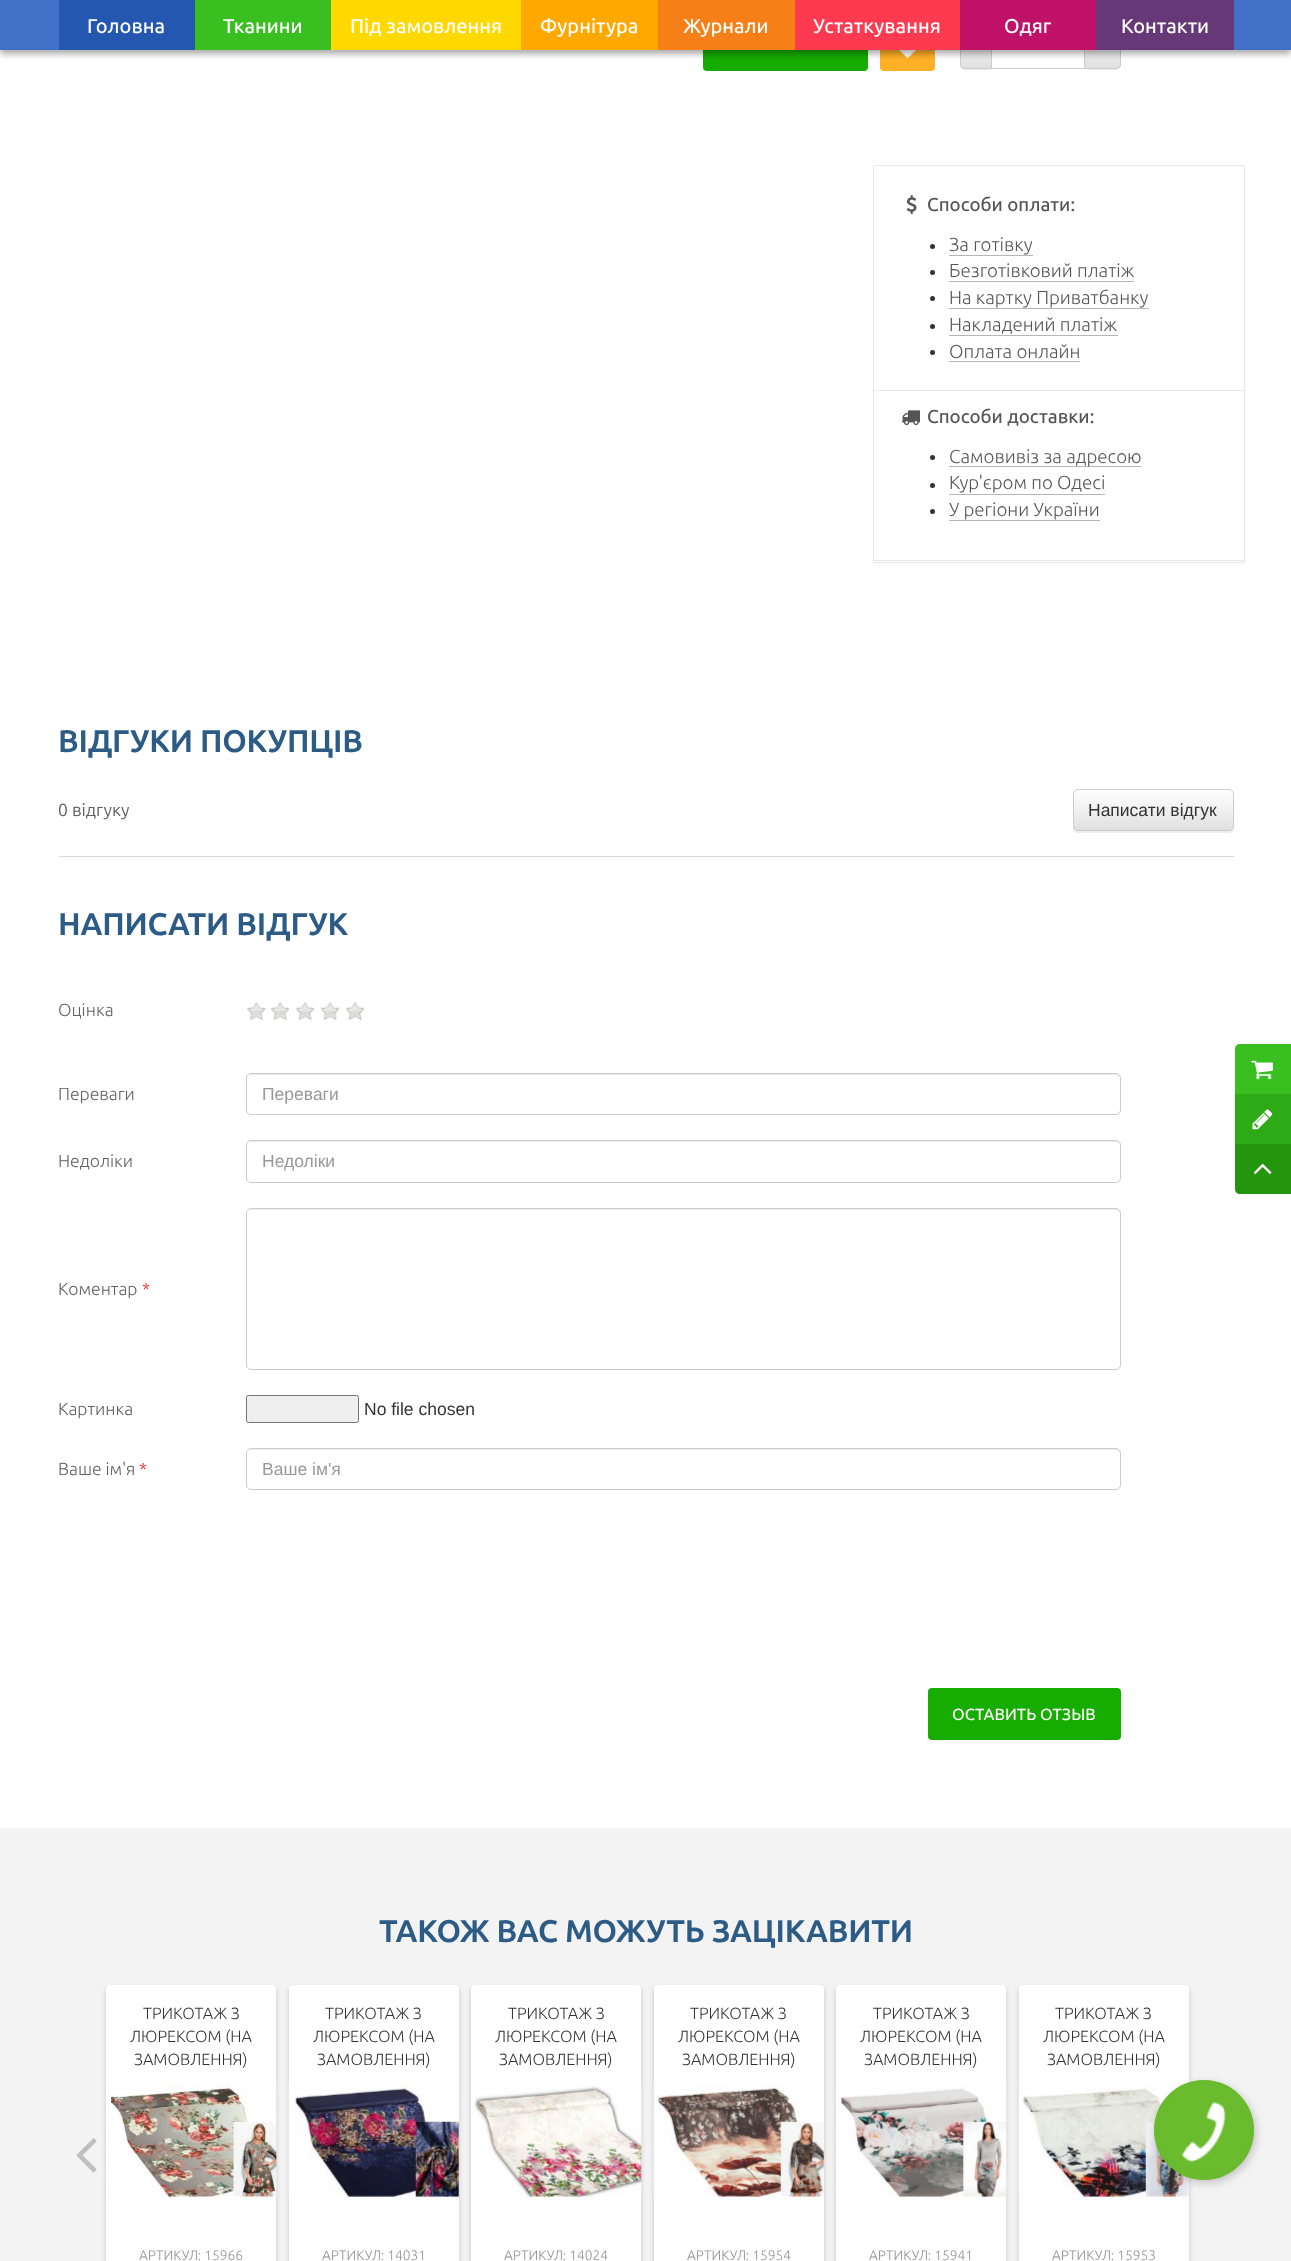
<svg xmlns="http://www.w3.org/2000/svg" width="1291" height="2261">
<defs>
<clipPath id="clip1"><path d="M965 24h28v45h-28c-3 0-5-2-5-5v-35c0-3 2-5 5-5z"/></clipPath>
<linearGradient id="g1" gradientUnits="userSpaceOnUse" x1="976" y1="25" x2="976" y2="68"><stop offset="0" stop-color="#fff"/><stop offset="1" stop-color="#e0e0e0"/></linearGradient>
<clipPath id="clip2"><path d="M1084 24h32c3 0 5 2 5 5v35c0 3-2 5-5 5h-32z"/></clipPath>
<linearGradient id="g2" gradientUnits="userSpaceOnUse" x1="1103" y1="25" x2="1103" y2="68"><stop offset="0" stop-color="#fff"/><stop offset="1" stop-color="#e0e0e0"/></linearGradient>
<clipPath id="clip3"><rect x="1073" y="789" width="161" height="42" rx="5"/></clipPath>
<linearGradient id="g3" gradientUnits="userSpaceOnUse" x1="1153" y1="790" x2="1153" y2="830"><stop offset="0" stop-color="#fff"/><stop offset="1" stop-color="#e0e0e0"/></linearGradient>
</defs>
<rect width="100%" height="100%" fill="#fff"/>
<rect x="703" y="24" width="165" height="47" rx="4" fill="#16ad00"/>
<rect x="880" y="24" width="55" height="47" rx="4" fill="#ffb026"/>
<image x="899" y="50" width="17" height="8" href="media/1.png"/>
<rect x="960" y="25" width="33" height="45" rx="5" fill="#00000012" filter="blur(0.5px)"/>
<g clip-path="url(#clip1)">
<rect x="960" y="50" width="31" height="18" fill="url(#g1)"/>
</g>
<path d="M965 24.5h27.5v44h-27.5c-2.5 0-4.5-2-4.5-4.5v-35c0-2.5 2-4.5 4.5-4.5z" fill="none" stroke="#ccc"/>
<rect x="992" y="50" width="1" height="18" fill="#fff"/>
<rect x="991.5" y="24.5" width="93" height="44" fill="none" stroke="#ccc"/>
<rect x="1084" y="25" width="37" height="45" rx="5" fill="#00000012" filter="blur(0.5px)"/>
<g clip-path="url(#clip2)">
<rect x="1085" y="50" width="36" height="18" fill="url(#g2)"/>
</g>
<path d="M1084.5 24.5h31.5c2.5 0 4.5 2 4.5 4.5v35c0 2.5-2 4.5-4.5 4.5h-31.5z" fill="none" stroke="#ccc"/>
<rect y="4" width="1291" height="50" fill="#00000054" filter="blur(3px)"/>
<rect width="1291" height="50" fill="#4071c6"/>
<rect x="59" width="136" height="50" fill="#2457af"/>
<text x="87" y="33" style="font-family:Ubuntu;font-size:20px;font-weight:500;fill:#fff">Головна</text>
<rect x="195" width="136" height="50" fill="#3abf20"/>
<text x="223" y="33" style="font-family:Ubuntu;font-size:20px;font-weight:500;fill:#fff">Тканини</text>
<rect x="331" width="190" height="50" fill="#ffd800"/>
<text x="350" y="33" style="font-family:Ubuntu;font-size:20px;font-weight:500;fill:#fff">Під замовлення</text>
<rect x="521" width="137" height="50" fill="#ffa800"/>
<text x="540" y="33" style="font-family:Ubuntu;font-size:20px;font-weight:500;fill:#fff">Фурнітура</text>
<rect x="658" width="137" height="50" fill="#f68017"/>
<text x="683" y="33" style="font-family:Ubuntu;font-size:20px;font-weight:500;fill:#fff">Журнали</text>
<rect x="795" width="165" height="50" fill="#fe3a50"/>
<text x="813" y="33" style="font-family:Ubuntu;font-size:20px;font-weight:500;fill:#fff">Устаткування</text>
<rect x="960" width="136" height="50" fill="#c01269"/>
<text x="1004" y="33" style="font-family:Ubuntu;font-size:20px;font-weight:500;fill:#fff">Одяг</text>
<rect x="1096" width="138" height="50" fill="#663877"/>
<text x="1121" y="33" style="font-family:Ubuntu;font-size:20px;font-weight:500;fill:#fff">Контакти</text>
<rect x="873.5" y="165.5" width="371" height="397" fill="none" stroke="#e8e8e8"/>
<rect x="874" y="390" width="370" height="1" fill="#e8e8e8"/>
<image x="906" y="195" width="11" height="19" href="media/2.png"/>
<text x="927" y="211" style="font-family:Ubuntu;font-size:18.75px;font-weight:500;fill:#555">Способи оплати:</text>
<circle cx="932.5" cy="246.5" r="2.5" fill="#333"/>
<text x="949" y="251" style="font-family:Ubuntu;font-size:18.75px;font-weight:300;fill:#555">За готівку</text>
<rect x="949" y="255" width="84" height="1" fill="#b6b6b6"/>
<circle cx="932.5" cy="272.5" r="2.5" fill="#333"/>
<text x="949" y="277" style="font-family:Ubuntu;font-size:18.75px;font-weight:300;fill:#555">Безготівковий платіж</text>
<rect x="949" y="281" width="185" height="1" fill="#b6b6b6"/>
<circle cx="932.5" cy="298.5" r="2.5" fill="#333"/>
<text x="949" y="304" style="font-family:Ubuntu;font-size:18.75px;font-weight:300;fill:#555">На картку Приватбанку</text>
<rect x="949" y="308" width="200" height="1" fill="#b6b6b6"/>
<circle cx="932.5" cy="326.5" r="2.5" fill="#333"/>
<text x="949" y="331" style="font-family:Ubuntu;font-size:18.75px;font-weight:300;fill:#555">Накладений платіж</text>
<rect x="949" y="335" width="169" height="1" fill="#b6b6b6"/>
<circle cx="932.5" cy="352.5" r="2.5" fill="#333"/>
<text x="949" y="358" style="font-family:Ubuntu;font-size:18.75px;font-weight:300;fill:#555">Оплата онлайн</text>
<rect x="949" y="361" width="131" height="1" fill="#b6b6b6"/>
<rect x="874" y="560" width="370" height="1" fill="#e8e8e8"/>
<image x="902" y="410" width="18" height="16" href="media/3.png"/>
<text x="927" y="423" style="font-family:Ubuntu;font-size:18.75px;font-weight:500;fill:#555">Способи доставки:</text>
<circle cx="932.5" cy="457.5" r="2.5" fill="#333"/>
<rect x="949" y="466" width="192" height="1" fill="#b6b6b6"/>
<text x="949" y="463" style="font-family:Ubuntu;font-size:18.75px;font-weight:300;fill:#555">Самовивіз за адресою</text>
<circle cx="932.5" cy="485.5" r="2.5" fill="#333"/>
<text x="949" y="489" style="font-family:Ubuntu;font-size:18.75px;font-weight:300;fill:#555">Кур'єром по Одесі</text>
<rect x="949" y="494" width="156" height="1" fill="#b6b6b6"/>
<circle cx="932.5" cy="511.5" r="2.5" fill="#333"/>
<text x="949" y="516" style="font-family:Ubuntu;font-size:18.75px;font-weight:300;fill:#555">У регіони України</text>
<rect x="949" y="520" width="151" height="1" fill="#b6b6b6"/>
<text x="58" y="752" style="font-family:Ubuntu;font-size:31.25px;font-weight:bold;letter-spacing:-0.25px;fill:#2c5b86">ВІДГУКИ ПОКУПЦІВ</text>
<rect x="59" y="856" width="1175" height="1" fill="#d8d8d8"/>
<text x="58" y="816" style="font-family:Ubuntu;font-size:17.5px;fill:#606060">0 відгуку</text>
<rect x="1073" y="790" width="161" height="43" rx="5" fill="#00000012" filter="blur(0.5px)"/>
<g clip-path="url(#clip3)">
<rect x="1073" y="790" width="161" height="40" fill="url(#g3)"/>
</g>
<path d="M1078 791h151c2 0 3 2 3 4v34c1-1 1-2 1-3v-32c0-2-2-4-4-4h-151c-2 0-4 2-4 4v1c0-2 1-4 4-4z" fill="#ffffff26"/>
<rect x="1073.5" y="789.5" width="160" height="41" rx="4.5" fill="none" stroke="#ccc"/>
<text x="1088" y="816" style="font-family:Liberation Sans;font-size:17.5px;fill:#333">Написати відгук</text>
<text x="58" y="935" style="font-family:Ubuntu;font-size:31.25px;font-weight:bold;letter-spacing:-0.25px;fill:#2c5b86">НАПИСАТИ ВІДГУК</text>
<text x="58" y="1016" style="font-family:Ubuntu;font-size:17.5px;font-weight:300;fill:#606060">Оцінка</text>
<image x="246" y="1001" width="20" height="20" href="media/4.png"/>
<image x="270" y="1001" width="20" height="20" href="media/5.png"/>
<image x="295" y="1001" width="20" height="20" href="media/6.png"/>
<image x="320" y="1001" width="20" height="20" href="media/6.png"/>
<image x="345" y="1001" width="20" height="20" href="media/6.png"/>
<text x="58" y="1100" style="font-family:Ubuntu;font-size:17.5px;font-weight:300;fill:#606060">Переваги</text>
<path d="M251 1075h865c2 0 4 2 4 4c0-3-1-5-4-5h-864c-3 0-4 2-4 5c0-2 1-4 3-4z" fill="#ececec"/>
<rect x="246.5" y="1073.5" width="874" height="41" rx="4.5" fill="none" stroke="#ccc"/>
<text x="262" y="1100" style="font-family:Liberation Sans;font-size:17.5px;fill:#999">Переваги</text>
<text x="58" y="1167" style="font-family:Ubuntu;font-size:17.5px;font-weight:300;fill:#606060">Недоліки</text>
<path d="M251 1142h865c2 0 4 2 4 4c0-3-1-5-4-5h-864c-3 0-4 2-4 5c0-2 1-4 3-4z" fill="#ececec"/>
<rect x="246.5" y="1140.5" width="874" height="42" rx="4.5" fill="none" stroke="#ccc"/>
<text x="262" y="1167" style="font-family:Liberation Sans;font-size:17.5px;fill:#999">Недоліки</text>
<text x="58" y="1295" style="font-family:Ubuntu;font-size:17.5px;font-weight:300;fill:#606060">Коментар</text>
<text x="142" y="1295" style="font-family:Ubuntu;font-size:17.5px;font-weight:300;fill:#fa1919">*</text>
<path d="M251 1210h865c2 0 4 2 4 4c0-3-1-5-4-5h-864c-3 0-4 2-4 5c0-2 1-4 3-4z" fill="#ececec"/>
<rect x="246.5" y="1208.5" width="874" height="161" rx="4.5" fill="none" stroke="#ccc"/>
<text x="58" y="1415" style="font-family:Ubuntu;font-size:17.5px;font-weight:300;fill:#606060">Картинка</text>
<rect x="246.5" y="1395.5" width="112" height="27" rx="2" fill="#efefef" stroke="#767676"/>
<text x="364" y="1415" style="font-family:Liberation Sans;font-size:17.5px;fill:#333">No file chosen</text>
<text x="58" y="1475" style="font-family:Ubuntu;font-size:17.5px;font-weight:300;fill:#606060">Ваше ім'я</text>
<text x="139" y="1475" style="font-family:Ubuntu;font-size:17.5px;font-weight:300;fill:#fa1919">*</text>
<path d="M251 1450h865c2 0 4 2 4 4c0-3-1-5-4-5h-864c-3 0-4 2-4 5c0-2 1-4 3-4z" fill="#ececec"/>
<rect x="246.5" y="1448.5" width="874" height="41" rx="4.5" fill="none" stroke="#ccc"/>
<text x="262" y="1475" style="font-family:Liberation Sans;font-size:17.5px;fill:#999">Ваше ім'я</text>
<rect x="928" y="1688" width="193" height="52" rx="4" fill="#16ad00"/>
<text x="952" y="1720" style="font-family:Ubuntu;font-size:16.25px;font-weight:500;fill:#fff">ОСТАВИТЬ ОТЗЫВ</text>
<rect y="1828" width="1291" height="433" fill="#f3f3f3"/>
<text x="379" y="1942" style="font-family:Ubuntu;font-size:31.25px;font-weight:bold;letter-spacing:-0.25px;fill:#2c5b86">ТАКОЖ ВАС МОЖУТЬ ЗАЦІКАВИТИ</text>
<image x="76" y="2138" width="21" height="35" href="media/7.png"/>
<rect x="106" y="1988" width="170" height="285" rx="4" fill="#1a1a1a33" filter="blur(2.5px)"/>
<rect x="106" y="1985" width="170" height="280" rx="4" fill="#fff"/>
<text x="143" y="2019" style="font-family:Ubuntu;font-size:16.25px;font-weight:300;fill:#333">ТРИКОТАЖ З</text>
<text x="130" y="2042" style="font-family:Ubuntu;font-size:16.25px;font-weight:300;fill:#333">ЛЮРЕКСОМ (НА</text>
<text x="134" y="2065" style="font-family:Ubuntu;font-size:16.25px;font-weight:300;fill:#333">ЗАМОВЛЕННЯ)</text>
<image x="106" y="2084" width="171" height="113" href="media/8.png"/>
<text x="139" y="2260" style="font-family:Ubuntu;font-size:13.75px;font-weight:300;fill:#909090">АРТИКУЛ: 15966</text>
<rect x="289" y="1988" width="170" height="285" rx="4" fill="#1a1a1a33" filter="blur(2.5px)"/>
<rect x="289" y="1985" width="170" height="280" rx="4" fill="#fff"/>
<text x="325" y="2019" style="font-family:Ubuntu;font-size:16.25px;font-weight:300;fill:#333">ТРИКОТАЖ З</text>
<text x="313" y="2042" style="font-family:Ubuntu;font-size:16.25px;font-weight:300;fill:#333">ЛЮРЕКСОМ (НА</text>
<text x="317" y="2065" style="font-family:Ubuntu;font-size:16.25px;font-weight:300;fill:#333">ЗАМОВЛЕННЯ)</text>
<image x="288" y="2084" width="171" height="113" href="media/9.png"/>
<text x="322" y="2260" style="font-family:Ubuntu;font-size:13.75px;font-weight:300;fill:#909090">АРТИКУЛ: 14031</text>
<rect x="471" y="1988" width="170" height="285" rx="4" fill="#1a1a1a33" filter="blur(2.5px)"/>
<rect x="471" y="1985" width="170" height="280" rx="4" fill="#fff"/>
<text x="508" y="2019" style="font-family:Ubuntu;font-size:16.25px;font-weight:300;fill:#333">ТРИКОТАЖ З</text>
<text x="495" y="2042" style="font-family:Ubuntu;font-size:16.25px;font-weight:300;fill:#333">ЛЮРЕКСОМ (НА</text>
<text x="499" y="2065" style="font-family:Ubuntu;font-size:16.25px;font-weight:300;fill:#333">ЗАМОВЛЕННЯ)</text>
<image x="471" y="2084" width="171" height="113" href="media/10.png"/>
<text x="504" y="2260" style="font-family:Ubuntu;font-size:13.75px;font-weight:300;fill:#909090">АРТИКУЛ: 14024</text>
<rect x="654" y="1988" width="170" height="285" rx="4" fill="#1a1a1a33" filter="blur(2.5px)"/>
<rect x="654" y="1985" width="170" height="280" rx="4" fill="#fff"/>
<text x="690" y="2019" style="font-family:Ubuntu;font-size:16.25px;font-weight:300;fill:#333">ТРИКОТАЖ З</text>
<text x="678" y="2042" style="font-family:Ubuntu;font-size:16.25px;font-weight:300;fill:#333">ЛЮРЕКСОМ (НА</text>
<text x="682" y="2065" style="font-family:Ubuntu;font-size:16.25px;font-weight:300;fill:#333">ЗАМОВЛЕННЯ)</text>
<image x="653" y="2084" width="171" height="113" href="media/11.png"/>
<text x="687" y="2260" style="font-family:Ubuntu;font-size:13.75px;font-weight:300;fill:#909090">АРТИКУЛ: 15954</text>
<rect x="836" y="1988" width="170" height="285" rx="4" fill="#1a1a1a33" filter="blur(2.5px)"/>
<rect x="836" y="1985" width="170" height="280" rx="4" fill="#fff"/>
<text x="873" y="2019" style="font-family:Ubuntu;font-size:16.25px;font-weight:300;fill:#333">ТРИКОТАЖ З</text>
<text x="860" y="2042" style="font-family:Ubuntu;font-size:16.25px;font-weight:300;fill:#333">ЛЮРЕКСОМ (НА</text>
<text x="864" y="2065" style="font-family:Ubuntu;font-size:16.25px;font-weight:300;fill:#333">ЗАМОВЛЕННЯ)</text>
<image x="836" y="2084" width="171" height="113" href="media/12.png"/>
<text x="869" y="2260" style="font-family:Ubuntu;font-size:13.75px;font-weight:300;fill:#909090">АРТИКУЛ: 15941</text>
<rect x="1019" y="1988" width="170" height="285" rx="4" fill="#1a1a1a33" filter="blur(2.5px)"/>
<rect x="1019" y="1985" width="170" height="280" rx="4" fill="#fff"/>
<text x="1055" y="2019" style="font-family:Ubuntu;font-size:16.25px;font-weight:300;fill:#333">ТРИКОТАЖ З</text>
<text x="1043" y="2042" style="font-family:Ubuntu;font-size:16.25px;font-weight:300;fill:#333">ЛЮРЕКСОМ (НА</text>
<text x="1047" y="2065" style="font-family:Ubuntu;font-size:16.25px;font-weight:300;fill:#333">ЗАМОВЛЕННЯ)</text>
<image x="1018" y="2084" width="171" height="113" href="media/13.png"/>
<text x="1052" y="2260" style="font-family:Ubuntu;font-size:13.75px;font-weight:300;fill:#909090">АРТИКУЛ: 15953</text>
<path d="M1240 1044h51v50h-56v-45c0-3 2-5 5-5z" fill="#3abf20"/>
<image x="1251" y="1060" width="22" height="20" href="media/14.png"/>
<rect x="1235" y="1094" width="56" height="50" fill="#2faa17"/>
<image x="1252" y="1109" width="21" height="21" href="media/15.png"/>
<path d="M1235 1144h56v50h-51c-3 0-5-2-5-5z" fill="#24960e"/>
<image x="1253" y="1163" width="19" height="11" href="media/16.png"/>
<rect x="1156" y="2083" width="100" height="100" rx="50" fill="#00000033" filter="blur(4.5px)"/>
<circle cx="1204" cy="2130" r="50" fill="#6abb2e"/>
<circle cx="1204" cy="2130" r="47.5" fill="none" stroke="#6abb2e4d" stroke-width="5"/>
<image x="1182" y="2101" width="44" height="62" href="media/17.png"/>
</svg>
